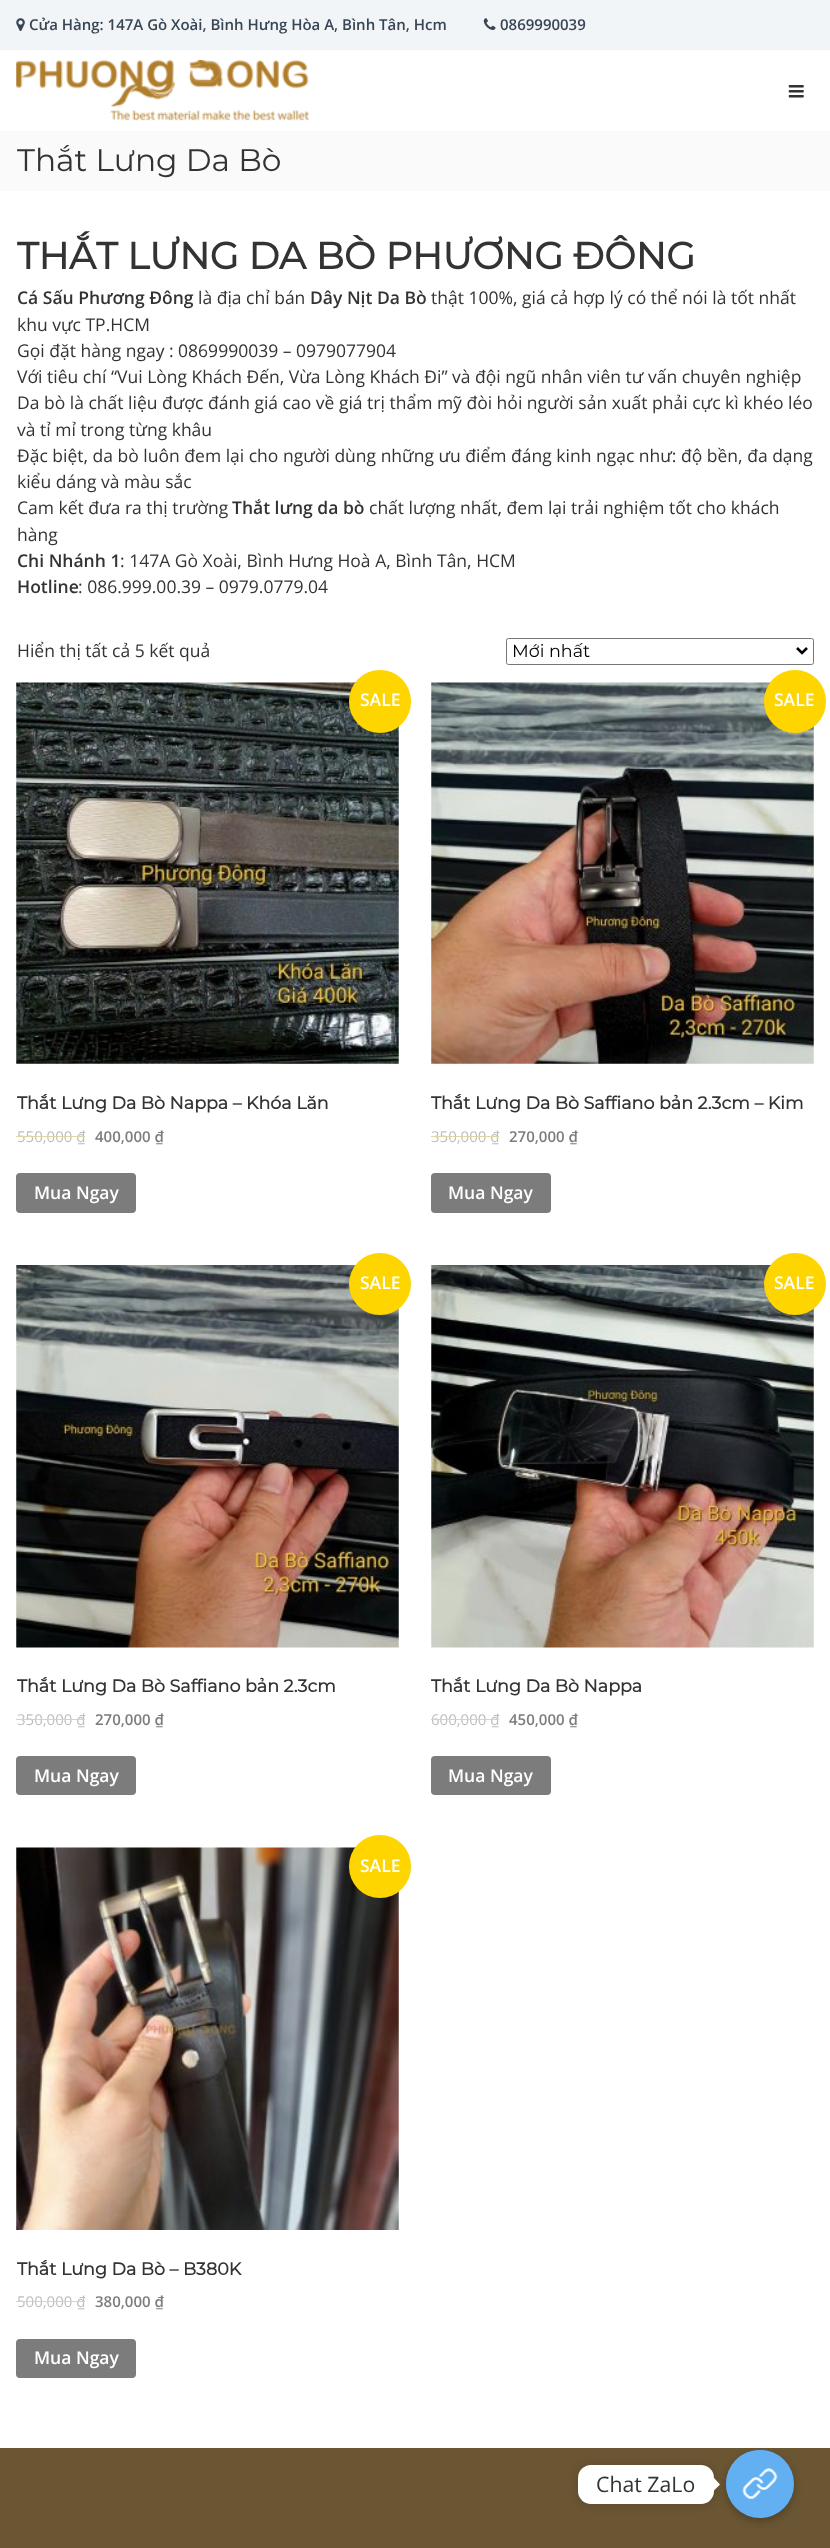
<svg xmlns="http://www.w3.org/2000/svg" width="830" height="2548">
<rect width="100%" height="100%" fill="#fff"/>
<rect width="830" height="50" fill="#f1f5f8"/>
<image x="16" y="18" width="9" height="13" href="media/1.png"/>
<text x="29" y="30" style="font-family:Open Sans;font-size:15px;font-weight:600;fill:#384554">Cửa Hàng: 147A Gò Xoài, Bình Hưng Hòa A, Bình Tân, Hcm</text>
<image x="483" y="18" width="13" height="12" href="media/2.png"/>
<text x="500" y="30" style="font-family:Open Sans;font-size:15px;font-weight:600;fill:#384554">0869990039</text>
<image x="16" y="60" width="293" height="61" href="media/3.png"/>
<image x="788" y="85" width="16" height="13" href="media/4.png"/>
<rect y="131" width="830" height="60" fill="#fafafa"/>
<text x="17" y="171" style="font-family:Montserrat;font-size:31.25px;font-weight:100;fill:#333">Thắt Lưng Da Bò</text>
<text x="17" y="269" style="font-family:Montserrat;font-size:37.5px;font-weight:bold;fill:#333">THẮT LƯNG DA BÒ PHƯƠNG ĐÔNG</text>
<text x="17" y="304" style="font-family:Open Sans;font-size:17.5px;font-weight:600;fill:#333">Cá Sấu Phương Đông</text>
<text x="198" y="304" style="font-family:Open Sans;font-size:17.5px;fill:#333">là địa chỉ bán</text>
<text x="310" y="304" style="font-family:Open Sans;font-size:17.5px;font-weight:600;fill:#333">Dây Nịt Da Bò</text>
<text x="431" y="304" style="font-family:Open Sans;font-size:17.5px;fill:#333">thật 100%, giá cả hợp lý có thể nói là tốt nhất</text>
<text x="17" y="331" style="font-family:Open Sans;font-size:17.5px;fill:#333">khu vực TP.HCM</text>
<text x="17" y="357" style="font-family:Open Sans;font-size:17.5px;fill:#333">Gọi đặt hàng ngay : 0869990039 – 0979077904</text>
<text x="17" y="383" style="font-family:Open Sans;font-size:17.5px;fill:#333">Với tiêu chí “Vui Lòng Khách Đến, Vừa Lòng Khách Đi” và đội ngũ nhân viên tư vấn chuyên nghiệp</text>
<text x="17" y="409" style="font-family:Open Sans;font-size:17.5px;fill:#333">Da bò là chất liệu được đánh giá cao về giá trị thẩm mỹ đòi hỏi người sản xuất phải cực kì khéo léo</text>
<text x="17" y="436" style="font-family:Open Sans;font-size:17.5px;fill:#333">và tỉ mỉ trong từng khâu</text>
<text x="17" y="462" style="font-family:Open Sans;font-size:17.5px;fill:#333">Đặc biệt, da bò luôn đem lại cho người dùng những ưu điểm đáng kinh ngạc như: độ bền, đa dạng</text>
<text x="17" y="488" style="font-family:Open Sans;font-size:17.5px;fill:#333">kiểu dáng và màu sắc</text>
<text x="17" y="514" style="font-family:Open Sans;font-size:17.5px;fill:#333">Cam kết đưa ra thị trường</text>
<text x="232" y="514" style="font-family:Open Sans;font-size:17.5px;font-weight:600;fill:#333">Thắt lưng da bò</text>
<text x="369" y="514" style="font-family:Open Sans;font-size:17.5px;fill:#333">chất lượng nhất, đem lại trải nghiệm tốt cho khách</text>
<text x="17" y="541" style="font-family:Open Sans;font-size:17.5px;fill:#333">hàng</text>
<text x="17" y="567" style="font-family:Open Sans;font-size:17.5px;font-weight:600;fill:#333">Chi Nhánh 1</text>
<text x="120" y="567" style="font-family:Open Sans;font-size:17.5px;fill:#333">: 147A Gò Xoài, Bình Hưng Hoà A, Bình Tân, HCM</text>
<text x="17" y="593" style="font-family:Open Sans;font-size:17.5px;font-weight:600;fill:#333">Hotline</text>
<text x="78" y="593" style="font-family:Open Sans;font-size:17.5px;fill:#333">: 086.999.00.39 – 0979.0779.04</text>
<text x="17" y="657" style="font-family:Open Sans;font-size:17.5px;fill:#333">Hiển thị tất cả 5 kết quả</text>
<rect x="506.5" y="638.5" width="307" height="26" rx="2" fill="none" stroke="#767676"/>
<path d="M797 648l5 5l5-5" fill="none" stroke="#000" stroke-width="2.5"/>
<text x="512" y="657" style="font-family:Montserrat;font-size:17.5px;font-weight:100;fill:#000">Mới nhất</text>
<image x="16" y="682" width="383" height="382" href="media/5.png"/>
<rect x="349" y="670" width="62" height="63" rx="31" fill="#ffd500"/>
<text x="360" y="706" style="font-family:Open Sans;font-size:17.5px;font-weight:600;fill:#fff">SALE</text>
<text x="17" y="1109" style="font-family:Montserrat;font-size:17.5px;font-weight:bold;fill:#333">Thắt Lưng Da Bò Nappa – Khóa Lăn</text>
<text x="17" y="1142" style="font-family:Open Sans;font-size:15px;fill:#bebebe">550,000 ₫</text>
<rect x="16" y="1136" width="69" height="1" fill="#d9d7aa"/>
<text x="95" y="1142" style="font-family:Open Sans;font-size:15px;font-weight:600;fill:#7c7c7c">400,000 ₫</text>
<rect x="16" y="1173" width="120" height="40" rx="4" fill="#7c7c7c"/>
<text x="34" y="1199" style="font-family:Open Sans;font-size:17.5px;font-weight:600;fill:#fff">Mua Ngay</text>
<image x="431" y="682" width="383" height="382" href="media/6.png"/>
<rect x="764" y="670" width="62" height="63" rx="31" fill="#ffd500"/>
<text x="774" y="706" style="font-family:Open Sans;font-size:17.5px;font-weight:600;fill:#fff">SALE</text>
<text x="431" y="1109" style="font-family:Montserrat;font-size:17.5px;font-weight:bold;fill:#333">Thắt Lưng Da Bò Saffiano bản 2.3cm – Kim</text>
<text x="431" y="1142" style="font-family:Open Sans;font-size:15px;fill:#bebebe">350,000 ₫</text>
<rect x="431" y="1136" width="68" height="1" fill="#d9d7aa"/>
<text x="509" y="1142" style="font-family:Open Sans;font-size:15px;font-weight:600;fill:#7c7c7c">270,000 ₫</text>
<rect x="431" y="1173" width="120" height="40" rx="4" fill="#7c7c7c"/>
<text x="448" y="1199" style="font-family:Open Sans;font-size:17.5px;font-weight:600;fill:#fff">Mua Ngay</text>
<image x="16" y="1265" width="383" height="383" href="media/7.png"/>
<circle cx="380" cy="1284" r="31" fill="#ffd500"/>
<text x="360" y="1289" style="font-family:Open Sans;font-size:17.5px;font-weight:600;fill:#fff">SALE</text>
<text x="17" y="1692" style="font-family:Montserrat;font-size:17.5px;font-weight:bold;fill:#333">Thắt Lưng Da Bò Saffiano bản 2.3cm</text>
<text x="17" y="1725" style="font-family:Open Sans;font-size:15px;fill:#bebebe">350,000 ₫</text>
<rect x="16" y="1719" width="69" height="1" fill="#d9d7aa"/>
<text x="95" y="1725" style="font-family:Open Sans;font-size:15px;font-weight:600;fill:#7c7c7c">270,000 ₫</text>
<rect x="16" y="1756" width="120" height="39" rx="4" fill="#7c7c7c"/>
<text x="34" y="1782" style="font-family:Open Sans;font-size:17.5px;font-weight:600;fill:#fff">Mua Ngay</text>
<image x="431" y="1265" width="383" height="383" href="media/8.png"/>
<circle cx="795" cy="1284" r="31" fill="#ffd500"/>
<text x="774" y="1289" style="font-family:Open Sans;font-size:17.5px;font-weight:600;fill:#fff">SALE</text>
<text x="431" y="1692" style="font-family:Montserrat;font-size:17.5px;font-weight:bold;fill:#333">Thắt Lưng Da Bò Nappa</text>
<text x="431" y="1725" style="font-family:Open Sans;font-size:15px;fill:#bebebe">600,000 ₫</text>
<rect x="431" y="1719" width="68" height="1" fill="#d9d7aa"/>
<text x="509" y="1725" style="font-family:Open Sans;font-size:15px;font-weight:600;fill:#7c7c7c">450,000 ₫</text>
<rect x="431" y="1756" width="120" height="39" rx="4" fill="#7c7c7c"/>
<text x="448" y="1782" style="font-family:Open Sans;font-size:17.5px;font-weight:600;fill:#fff">Mua Ngay</text>
<image x="16" y="1847" width="383" height="383" href="media/9.png"/>
<rect x="349" y="1835" width="62" height="63" rx="31" fill="#ffd500"/>
<text x="360" y="1872" style="font-family:Open Sans;font-size:17.5px;font-weight:600;fill:#fff">SALE</text>
<text x="17" y="2275" style="font-family:Montserrat;font-size:17.5px;font-weight:bold;fill:#333">Thắt Lưng Da Bò – B380K</text>
<text x="17" y="2307" style="font-family:Open Sans;font-size:15px;fill:#bebebe">500,000 ₫</text>
<rect x="16" y="2301" width="69" height="1" fill="#d9d7aa"/>
<text x="95" y="2307" style="font-family:Open Sans;font-size:15px;font-weight:600;fill:#7c7c7c">380,000 ₫</text>
<rect x="16" y="2339" width="120" height="39" rx="4" fill="#7c7c7c"/>
<text x="34" y="2364" style="font-family:Open Sans;font-size:17.5px;font-weight:600;fill:#fff">Mua Ngay</text>
<rect y="2448" width="830" height="100" fill="#6a5633"/>
<rect x="726" y="2454" width="68" height="67" rx="33.5" fill="#00000040" filter="blur(4px)"/>
<circle cx="760" cy="2484" r="34" fill="#62aff2"/>
<image x="726" y="2450" width="69" height="65" href="media/10.png"/>
<rect x="578" y="2466" width="136" height="39" rx="13" fill="#00000026" filter="blur(5px)"/>
<rect x="578" y="2465" width="136" height="39" rx="13" fill="#fff"/>
<text x="596" y="2492" style="font-family:Open Sans;font-size:21.25px;fill:#333">Chat ZaLo</text>
<path d="M714 2490.5v-12.5l6 6.5z" fill="#fff"/>
</svg>
